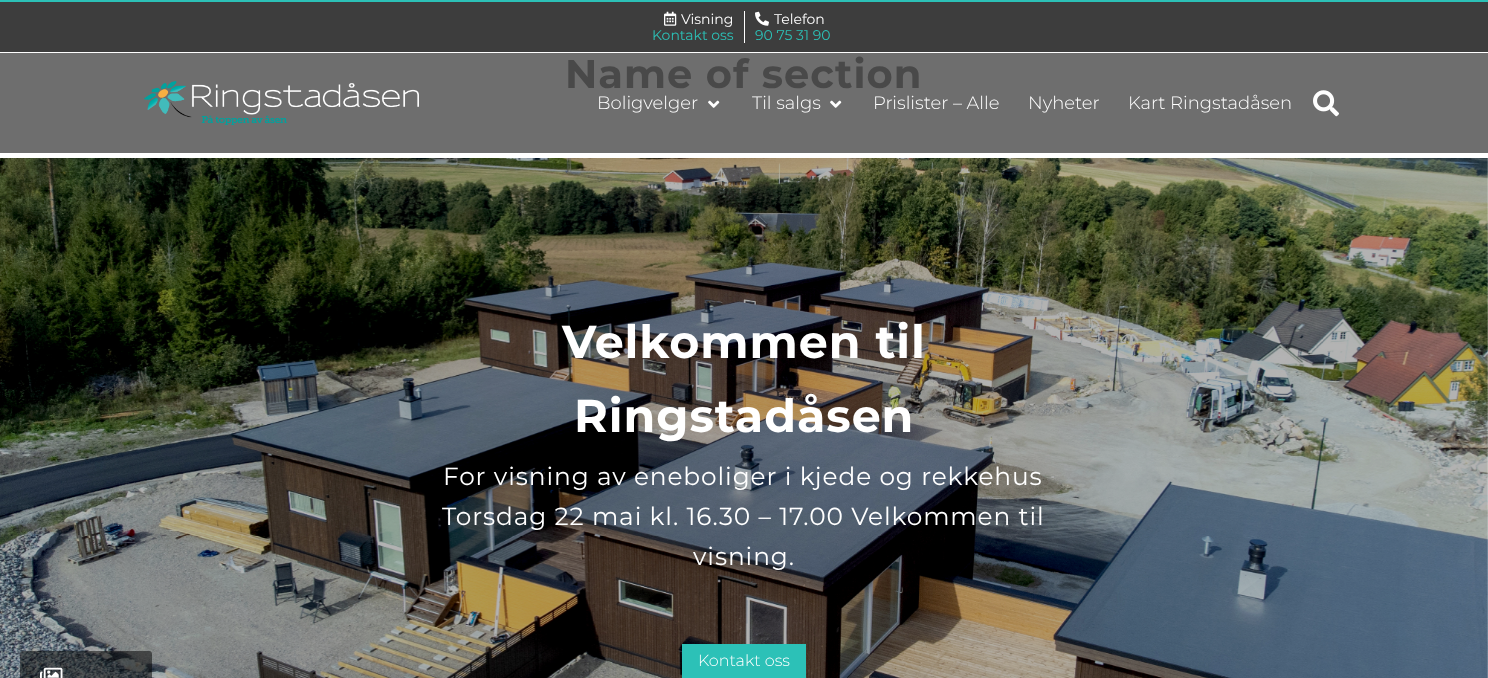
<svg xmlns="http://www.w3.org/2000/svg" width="1488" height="678">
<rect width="100%" height="100%" fill="#fff"/>
<rect width="1488" height="2" fill="#2cc1b7"/>
<rect y="2" width="1488" height="50" fill="#3d3d3d"/>
<rect x="744" y="11" width="1" height="32" fill="#fff"/>
<image x="664" y="11" width="13" height="15" href="media/1.png"/>
<text x="681" y="24" style="font-family:Montserrat;font-size:14px;fill:#fff">Visning</text>
<text x="652" y="40" style="font-family:Montserrat;font-size:14px;fill:#2cc1b7">Kontakt oss</text>
<image x="755" y="11" width="14" height="15" href="media/2.png"/>
<text x="774" y="24" style="font-family:Montserrat;font-size:14px;fill:#fff">Telefon</text>
<text x="755" y="40" style="font-family:Montserrat;font-size:14px;fill:#2cc1b7">90 75 31 90</text>
<rect y="53" width="1488" height="100" fill="#6e6e6e"/>
<image x="144" y="81" width="275" height="44" href="media/3.png"/>
<text x="597" y="109" style="font-family:Montserrat;font-size:18px;font-weight:300;fill:#fff">Boligvelger</text>
<image x="708" y="100" width="12" height="8" href="media/4.png"/>
<text x="752" y="109" style="font-family:Montserrat;font-size:18px;font-weight:300;fill:#fff">Til salgs</text>
<image x="830" y="100" width="12" height="8" href="media/4.png"/>
<text x="873" y="109" style="font-family:Montserrat;font-size:18px;font-weight:300;fill:#fff">Prislister – Alle</text>
<text x="1028" y="109" style="font-family:Montserrat;font-size:18px;font-weight:300;fill:#fff">Nyheter</text>
<text x="1128" y="109" style="font-family:Montserrat;font-size:18px;font-weight:300;fill:#fff">Kart Ringstadåsen</text>
<image x="1313" y="90" width="26" height="27" href="media/5.png"/>
<text x="565" y="88" style="font-family:Montserrat;font-size:40px;font-weight:bold;letter-spacing:1px;fill:#494949">Name of section</text>
<image x="0" y="158" width="1488" height="520" href="media/6.png"/>
<text x="562" y="358" style="font-family:Montserrat;font-size:46px;font-weight:bold;letter-spacing:0.9px;fill:#fff">Velkommen til</text>
<text x="574" y="432" style="font-family:Montserrat;font-size:46px;font-weight:bold;letter-spacing:0.9px;fill:#fff">Ringstadåsen</text>
<text x="443" y="485" style="font-family:Montserrat;font-size:24.8px;letter-spacing:0.9px;fill:#fff">For visning av eneboliger i kjede og rekkehus</text>
<text x="442" y="525" style="font-family:Montserrat;font-size:24.8px;letter-spacing:0.9px;fill:#fff">Torsdag 22 mai kl. 16.30 – 17.00 Velkommen til</text>
<text x="693" y="565" style="font-family:Montserrat;font-size:24.8px;letter-spacing:0.9px;fill:#fff">visning.</text>
<rect x="20" y="651" width="132" height="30" rx="3" fill="#00000080"/>
<image x="40" y="667" width="23" height="11" href="media/7.png"/>
<rect x="682" y="644" width="124" height="34" fill="#2cc1b7"/>
<text x="698" y="666" style="font-family:Montserrat;font-size:16px;font-weight:300;fill:#fff">Kontakt oss</text>
</svg>
